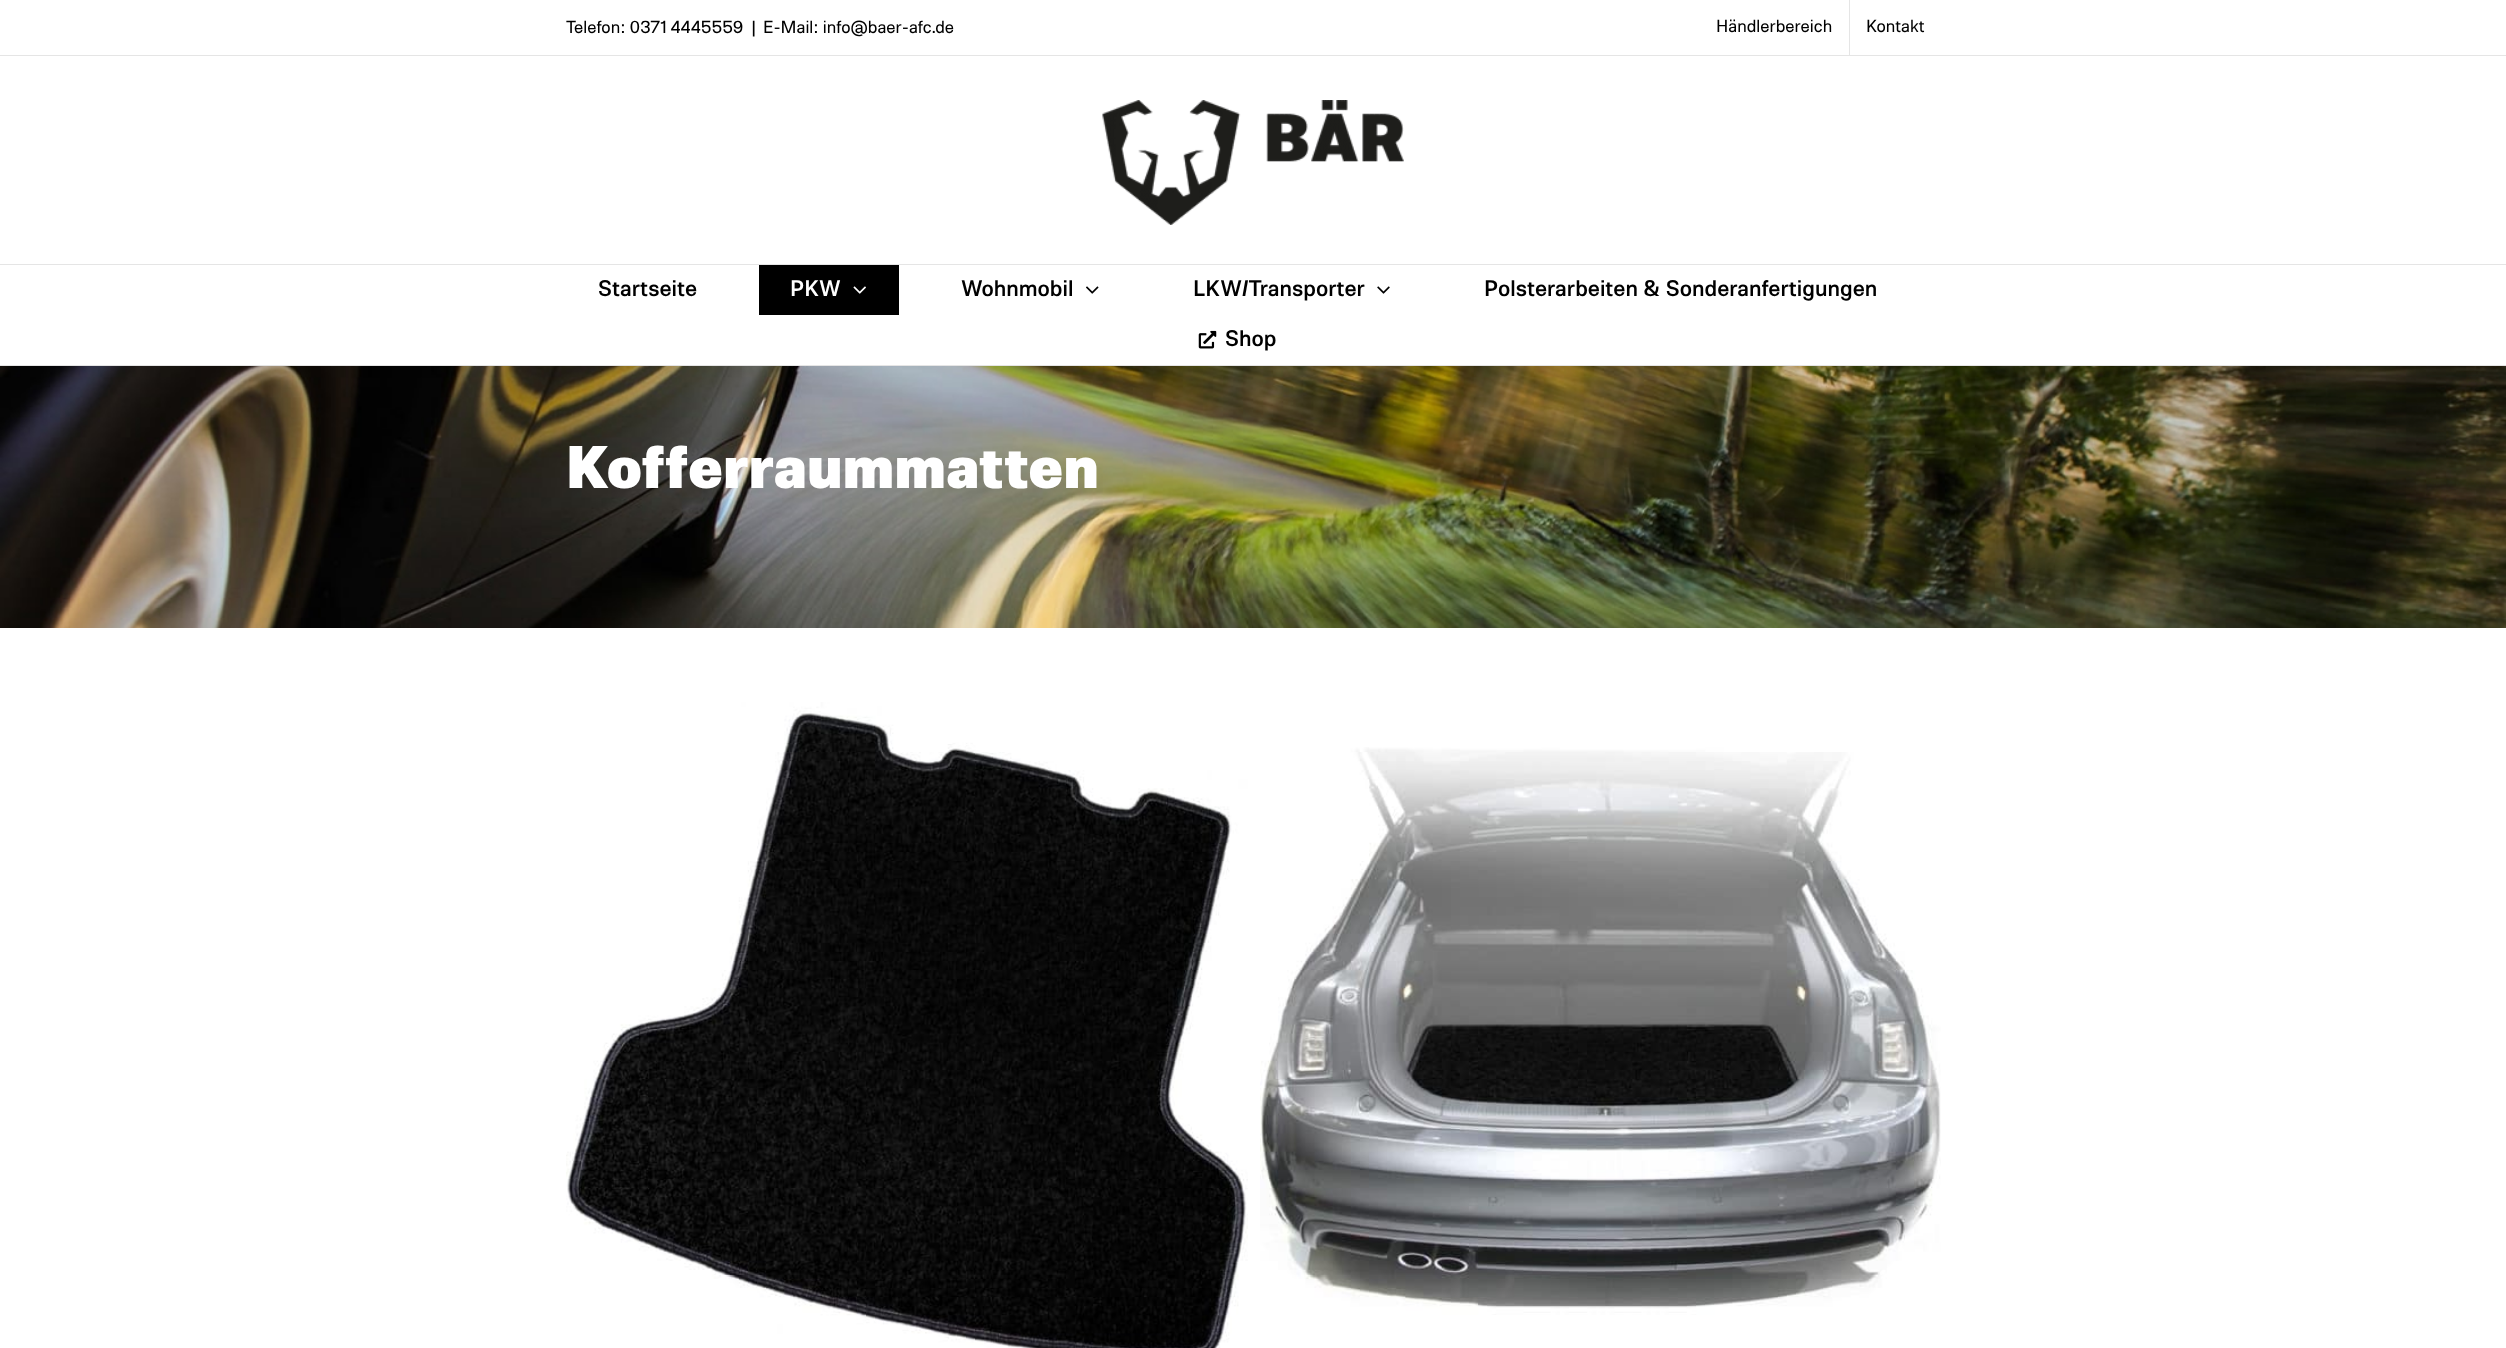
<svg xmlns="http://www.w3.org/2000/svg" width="2506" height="1348">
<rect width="100%" height="100%" fill="#fff"/>
<rect y="55" width="2506" height="1" fill="#e5e5e5"/>
<text x="566" y="33" style="font-family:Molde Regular;font-size:17.5px;fill:#000">Telefon: 0371 4445559</text>
<text x="751" y="33" style="font-family:Molde Regular;font-size:17.5px;fill:#000">|</text>
<text x="763" y="33" style="font-family:Molde Regular;font-size:17.5px;fill:#000">E-Mail: info@baer-afc.de</text>
<text x="1716" y="32" style="font-family:Molde Regular;font-size:17.5px;fill:#000">Händlerbereich</text>
<rect x="1849" width="1" height="55" fill="#e5e5e5"/>
<text x="1866" y="32" style="font-family:Molde Regular;font-size:17.5px;fill:#000">Kontakt</text>
<rect y="264" width="2506" height="1" fill="#e5e5e5"/>
<image x="1102" y="100" width="302" height="125" href="media/1.png"/>
<rect y="365" width="2506" height="1" fill="#e5e5e5"/>
<text x="598" y="296" style="font-family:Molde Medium;font-size:22.5px;fill:#000">Startseite</text>
<rect x="759" y="265" width="140" height="50" fill="#000"/>
<text x="790" y="296" style="font-family:Molde Medium;font-size:22.5px;fill:#fff">PKW</text>
<image x="853" y="286" width="13" height="8" href="media/2.png"/>
<text x="961" y="296" style="font-family:Molde Medium;font-size:22.5px;fill:#000">Wohnmobil</text>
<image x="1086" y="286" width="13" height="8" href="media/3.png"/>
<text x="1193" y="296" style="font-family:Molde Medium;font-size:22.5px;fill:#000">LKW/Transporter</text>
<image x="1377" y="286" width="13" height="8" href="media/4.png"/>
<text x="1484" y="296" style="font-family:Molde Medium;font-size:22.5px;fill:#000">Polsterarbeiten &amp; Sonderanfertigungen</text>
<image x="1198" y="330" width="19" height="19" href="media/5.png"/>
<text x="1225" y="346" style="font-family:Molde Medium;font-size:22.5px;fill:#000">Shop</text>
<image x="0" y="366" width="2506" height="262" href="media/6.png"/>
<text x="566" y="488" style="font-family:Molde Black;font-size:60px;fill:#fff">Kofferraummatten</text>
<image x="566" y="702" width="682" height="646" href="media/7.png"/>
<image x="1260" y="747" width="681" height="568" href="media/8.png"/>
</svg>
